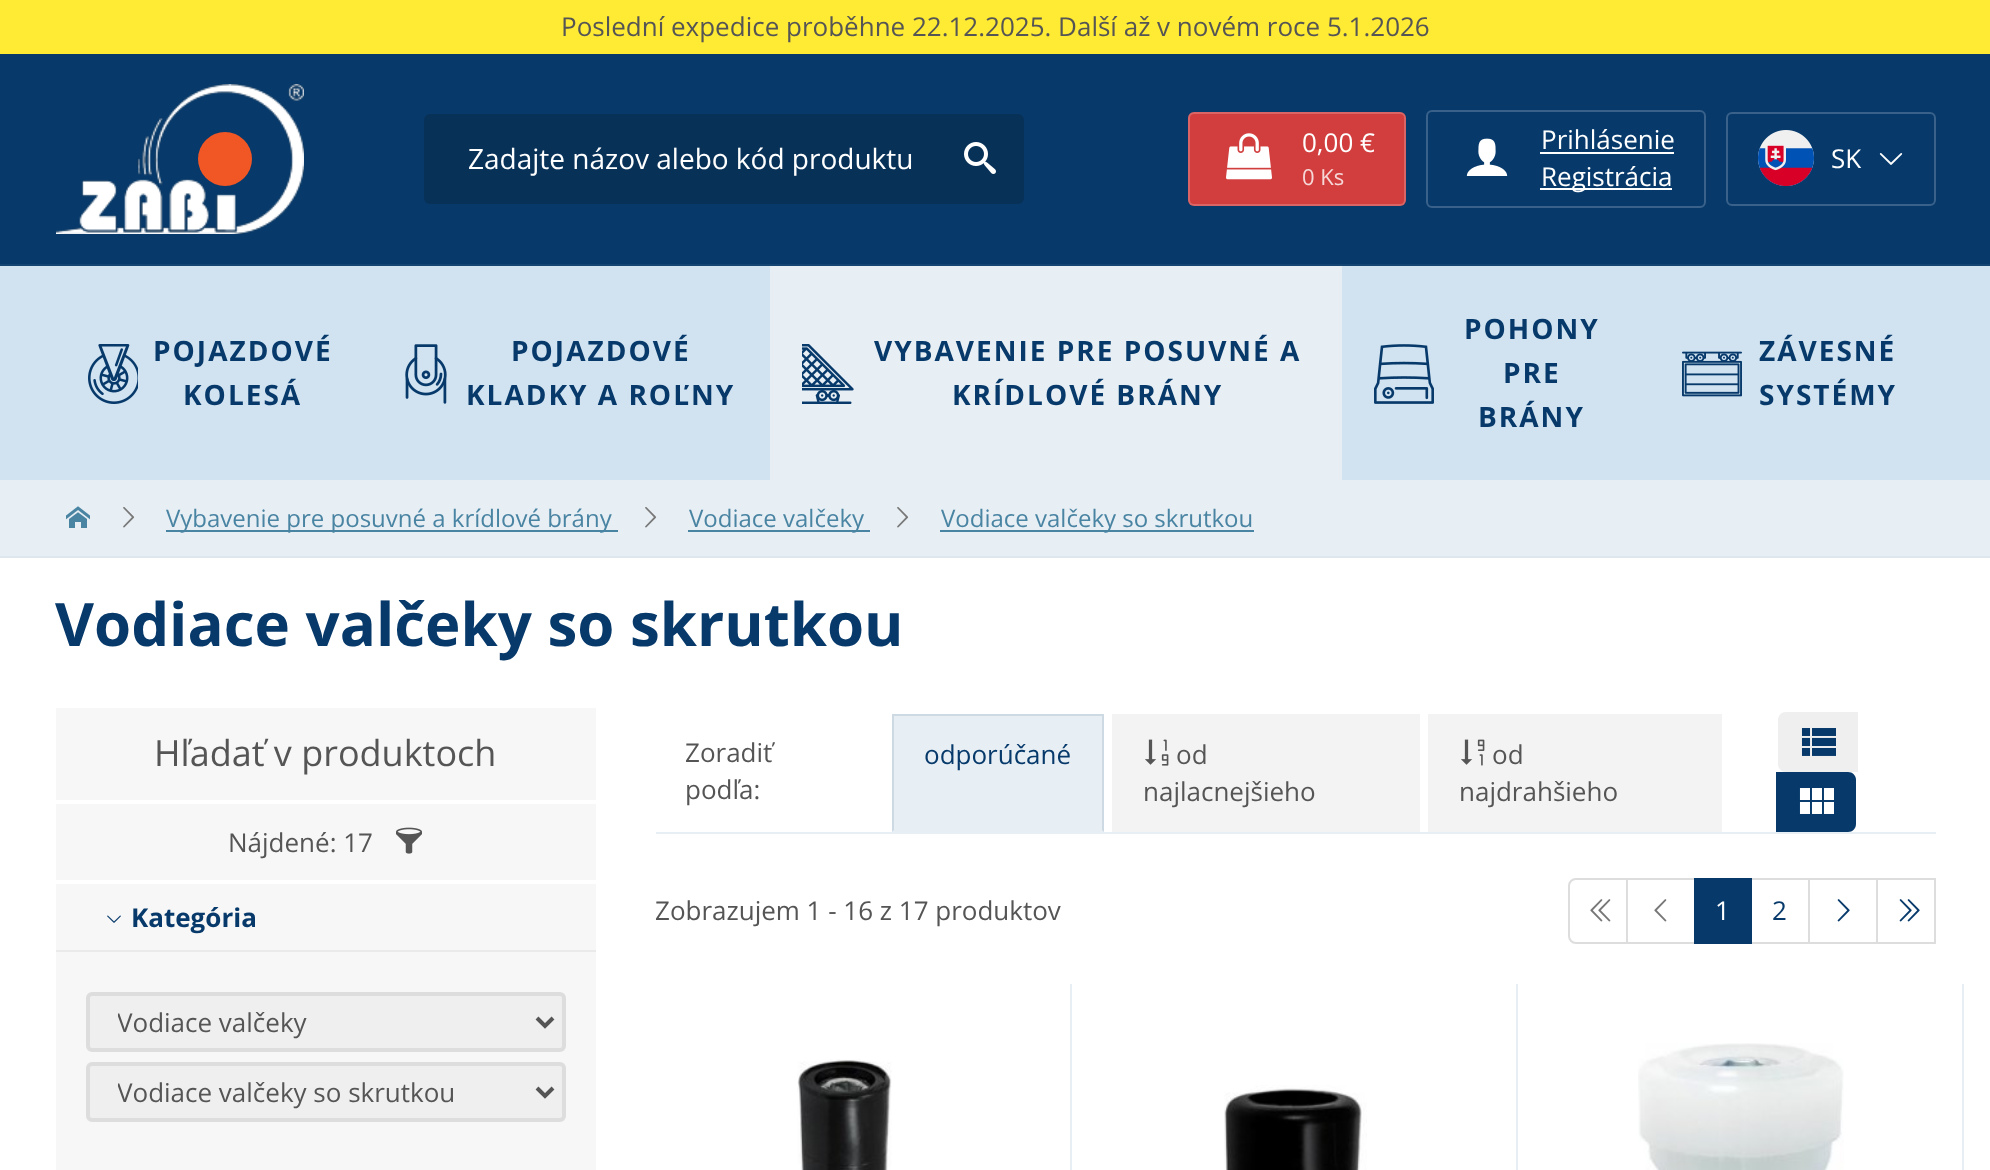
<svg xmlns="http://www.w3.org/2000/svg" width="1990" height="1170">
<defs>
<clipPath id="clip1"><rect x="118" y="1002" width="392" height="40"/></clipPath>
<clipPath id="clip2"><rect x="118" y="1072" width="392" height="40"/></clipPath>
</defs>
<rect width="100%" height="100%" fill="#fff"/>
<rect width="1990" height="54" fill="#ffea34"/>
<text x="561" y="36" style="font-family:Open Sans;font-size:26px;fill:#555">Poslední expedice proběhne 22.12.2025. Další až v novém roce 5.1.2026</text>
<rect y="54" width="1990" height="210" fill="#073a6b"/>
<rect y="264" width="1990" height="2" fill="#134472"/>
<image x="56" y="84" width="248" height="150" href="media/1.png"/>
<circle cx="225" cy="159" r="27" fill="#f15725"/>
<rect x="424" y="114" width="600" height="90" rx="6" fill="#083158"/>
<text x="468" y="169" style="font-family:Open Sans;font-size:28px;fill:#fff">Zadajte názov alebo kód produktu</text>
<image x="964" y="142" width="32" height="32" href="media/2.png"/>
<rect x="1188" y="112" width="218" height="94" rx="6" fill="#d23e3e"/>
<rect x="1189" y="113" width="216" height="92" rx="5" fill="none" stroke="#ffffff33" stroke-width="2"/>
<image x="1226" y="133" width="46" height="47" href="media/3.png"/>
<text x="1302" y="152" style="font-family:Open Sans;font-size:26px;fill:#fff">0,00 €</text>
<text x="1302" y="185" style="font-family:Open Sans;font-size:22px;fill:#f6d8d8">0 Ks</text>
<rect x="1427" y="111" width="278" height="96" rx="5" fill="none" stroke="#396189" stroke-width="2"/>
<image x="1466" y="138" width="42" height="38" href="media/4.png"/>
<text x="1541" y="149" style="font-family:Open Sans;font-size:26px;fill:#fff">Prihlásenie</text>
<rect x="1540" y="152" width="134" height="2" fill="#fff"/>
<rect x="1540" y="188" width="132" height="2" fill="#fff"/>
<text x="1541" y="186" style="font-family:Open Sans;font-size:26px;fill:#fff">Registrácia</text>
<rect x="1727" y="113" width="208" height="92" rx="5" fill="none" stroke="#396189" stroke-width="2"/>
<image x="1758" y="130" width="56" height="56" href="media/5.png"/>
<text x="1831" y="168" style="font-family:Open Sans;font-size:26px;fill:#fff">SK</text>
<image x="1879" y="153" width="24" height="12" href="media/6.png"/>
<rect y="266" width="1990" height="214" fill="#d1e3f1"/>
<image x="88" y="344" width="50" height="60" href="media/7.png"/>
<text x="153" y="361" style="font-family:Open Sans;font-size:28px;font-weight:bold;letter-spacing:2px;fill:#073a6b">POJAZDOVÉ</text>
<text x="183" y="405" style="font-family:Open Sans;font-size:28px;font-weight:bold;letter-spacing:2px;fill:#073a6b">KOLESÁ</text>
<image x="405" y="344" width="42" height="60" href="media/8.png"/>
<text x="511" y="361" style="font-family:Open Sans;font-size:28px;font-weight:bold;letter-spacing:2px;fill:#073a6b">POJAZDOVÉ</text>
<text x="466" y="405" style="font-family:Open Sans;font-size:28px;font-weight:bold;letter-spacing:2px;fill:#073a6b">KLADKY A ROĽNY</text>
<rect x="770" y="266" width="572" height="214" fill="#e8eff4"/>
<image x="802" y="344" width="52" height="60" href="media/9.png"/>
<text x="874" y="361" style="font-family:Open Sans;font-size:28px;font-weight:bold;letter-spacing:2px;fill:#073a6b">VYBAVENIE PRE POSUVNÉ A</text>
<text x="952" y="405" style="font-family:Open Sans;font-size:28px;font-weight:bold;letter-spacing:2px;fill:#073a6b">KRÍDLOVÉ BRÁNY</text>
<text x="1464" y="339" style="font-family:Open Sans;font-size:28px;font-weight:bold;letter-spacing:2px;fill:#073a6b">POHONY</text>
<image x="1374" y="344" width="60" height="60" href="media/10.png"/>
<text x="1503" y="383" style="font-family:Open Sans;font-size:28px;font-weight:bold;letter-spacing:2px;fill:#073a6b">PRE</text>
<text x="1478" y="427" style="font-family:Open Sans;font-size:28px;font-weight:bold;letter-spacing:2px;fill:#073a6b">BRÁNY</text>
<text x="1759" y="361" style="font-family:Open Sans;font-size:28px;font-weight:bold;letter-spacing:2px;fill:#073a6b">ZÁVESNÉ</text>
<image x="1682" y="351" width="60" height="46" href="media/11.png"/>
<text x="1759" y="405" style="font-family:Open Sans;font-size:28px;font-weight:bold;letter-spacing:2px;fill:#073a6b">SYSTÉMY</text>
<rect y="480" width="1990" height="76" fill="#e8eff4"/>
<rect y="556" width="1990" height="2" fill="#dee7ee"/>
<image x="66" y="506" width="24" height="22" href="media/12.png"/>
<image x="123" y="507" width="12" height="21" href="media/13.png"/>
<rect x="166" y="530" width="452" height="2" fill="#4a84a3"/>
<text x="166" y="527" style="font-family:Open Sans;font-size:24px;fill:#4a84a3">Vybavenie pre posuvné a krídlové brány</text>
<image x="645" y="507" width="12" height="21" href="media/13.png"/>
<rect x="688" y="530" width="182" height="2" fill="#4a84a3"/>
<text x="689" y="527" style="font-family:Open Sans;font-size:24px;fill:#4a84a3">Vodiace valčeky</text>
<image x="897" y="507" width="12" height="21" href="media/13.png"/>
<rect x="940" y="530" width="314" height="2" fill="#4a84a3"/>
<text x="941" y="527" style="font-family:Open Sans;font-size:24px;fill:#4a84a3">Vodiace valčeky so skrutkou</text>
<text x="55" y="646" style="font-family:Open Sans;font-size:60px;font-weight:bold;fill:#073a6b">Vodiace valčeky so skrutkou</text>
<rect x="56" y="708" width="540" height="92" fill="#f7f7f7"/>
<text x="154" y="766" style="font-family:Open Sans;font-size:36px;fill:#555">Hľadať v produktoch</text>
<rect x="56" y="804" width="540" height="76" fill="#f7f7f7"/>
<text x="228" y="852" style="font-family:Open Sans;font-size:26px;fill:#555">Nájdené: 17</text>
<image x="396" y="827" width="26" height="27" href="media/14.png"/>
<rect x="56" y="884" width="540" height="286" fill="#f7f7f7"/>
<rect x="56" y="950" width="540" height="2" fill="#eaeaea"/>
<image x="107" y="915" width="14" height="8" href="media/15.png"/>
<text x="131" y="927" style="font-family:Open Sans;font-size:26px;font-weight:bold;fill:#073a6b">Kategória</text>
<rect x="88" y="994" width="476" height="56" rx="4" fill="#efefef" stroke="#ddd" stroke-width="4"/>
<path d="M537 1018l8 8l8-8" fill="none" stroke="#555" stroke-width="4"/>
<g clip-path="url(#clip1)">
<text x="117" y="1032" style="font-family:Open Sans;font-size:26px;fill:#555">Vodiace valčeky</text>
</g>
<rect x="88" y="1064" width="476" height="56" rx="4" fill="#efefef" stroke="#ddd" stroke-width="4"/>
<path d="M537 1088l8 8l8-8" fill="none" stroke="#555" stroke-width="4"/>
<g clip-path="url(#clip2)">
<text x="117" y="1102" style="font-family:Open Sans;font-size:26px;fill:#555">Vodiace valčeky so skrutkou</text>
</g>
<rect x="656" y="832" width="1280" height="2" fill="#e8eff4"/>
<text x="685" y="762" style="font-family:Open Sans;font-size:26px;fill:#555">Zoradiť</text>
<text x="685" y="799" style="font-family:Open Sans;font-size:26px;fill:#555">podľa:</text>
<rect x="892" y="716" width="212" height="116" fill="#e8eff4"/>
<rect x="892" y="714" width="212" height="2" fill="#cddae4"/>
<path d="M1104 714v118l-2-2v-114z" fill="#cddae4"/>
<path d="M892 832v-118l2 2v114z" fill="#cddae4"/>
<text x="924" y="764" style="font-family:Open Sans;font-size:26px;fill:#073a6b">odporúčané</text>
<rect x="1112" y="714" width="308" height="118" fill="#f3f3f3"/>
<image x="1145" y="739" width="24" height="27" href="media/16.png"/>
<text x="1176" y="764" style="font-family:Open Sans;font-size:26px;fill:#555">od</text>
<text x="1143" y="801" style="font-family:Open Sans;font-size:26px;fill:#555">najlacnejšieho</text>
<rect x="1428" y="714" width="294" height="118" fill="#f3f3f3"/>
<image x="1461" y="739" width="24" height="27" href="media/17.png"/>
<text x="1492" y="764" style="font-family:Open Sans;font-size:26px;fill:#555">od</text>
<text x="1459" y="801" style="font-family:Open Sans;font-size:26px;fill:#555">najdrahšieho</text>
<path d="M1786 712h72v60h-72c-4.5 0-8-3.5-8-8v-44c0-4.5 3.5-8 8-8z" fill="#efefef"/>
<image x="1801" y="728" width="35" height="28" href="media/18.png"/>
<path d="M1776 772h72c4.5 0 8 3.5 8 8v44c0 4.5-3.5 8-8 8h-72z" fill="#073a6b"/>
<image x="1799" y="788" width="35" height="26" href="media/19.png"/>
<text x="655" y="920" style="font-family:Open Sans;font-size:26px;fill:#555">Zobrazujem 1 - 16 z 17 produktov</text>
<path d="M1576 879h51v64h-51c-4 0-7-3-7-7v-50c0-4 3-7 7-7z" fill="none" stroke="#ddd" stroke-width="2"/>
<image x="1590" y="899" width="13" height="23" href="media/20.png"/>
<image x="1598" y="899" width="13" height="23" href="media/21.png"/>
<rect x="1627" y="879" width="68" height="64" fill="none" stroke="#ddd" stroke-width="2"/>
<image x="1654" y="899" width="13" height="23" href="media/20.png"/>
<rect x="1751" y="879" width="58" height="64" fill="none" stroke="#ddd" stroke-width="2"/>
<rect x="1694" y="878" width="58" height="66" fill="#073a6b"/>
<text x="1715" y="920" style="font-family:Open Sans;font-size:26px;fill:#fff">1</text>
<text x="1772" y="920" style="font-family:Open Sans;font-size:26px;fill:#073a6b">2</text>
<rect x="1809" y="879" width="68" height="64" fill="none" stroke="#ddd" stroke-width="2"/>
<image x="1837" y="899" width="13" height="23" href="media/22.png"/>
<rect x="1877" y="879" width="58" height="64" fill="none" stroke="#ddd" stroke-width="2"/>
<image x="1899" y="899" width="13" height="23" href="media/22.png"/>
<image x="1907" y="899" width="13" height="23" href="media/23.png"/>
<rect x="1070" y="984" width="2" height="186" fill="#e8eff4"/>
<image x="797" y="1059" width="95" height="111" href="media/24.png"/>
<rect x="1516" y="984" width="2" height="186" fill="#e8eff4"/>
<image x="1224" y="1085" width="143" height="85" href="media/25.png"/>
<rect x="1962" y="984" width="2" height="186" fill="#e8eff4"/>
<image x="1638" y="1043" width="206" height="127" href="media/26.png"/>
</svg>
